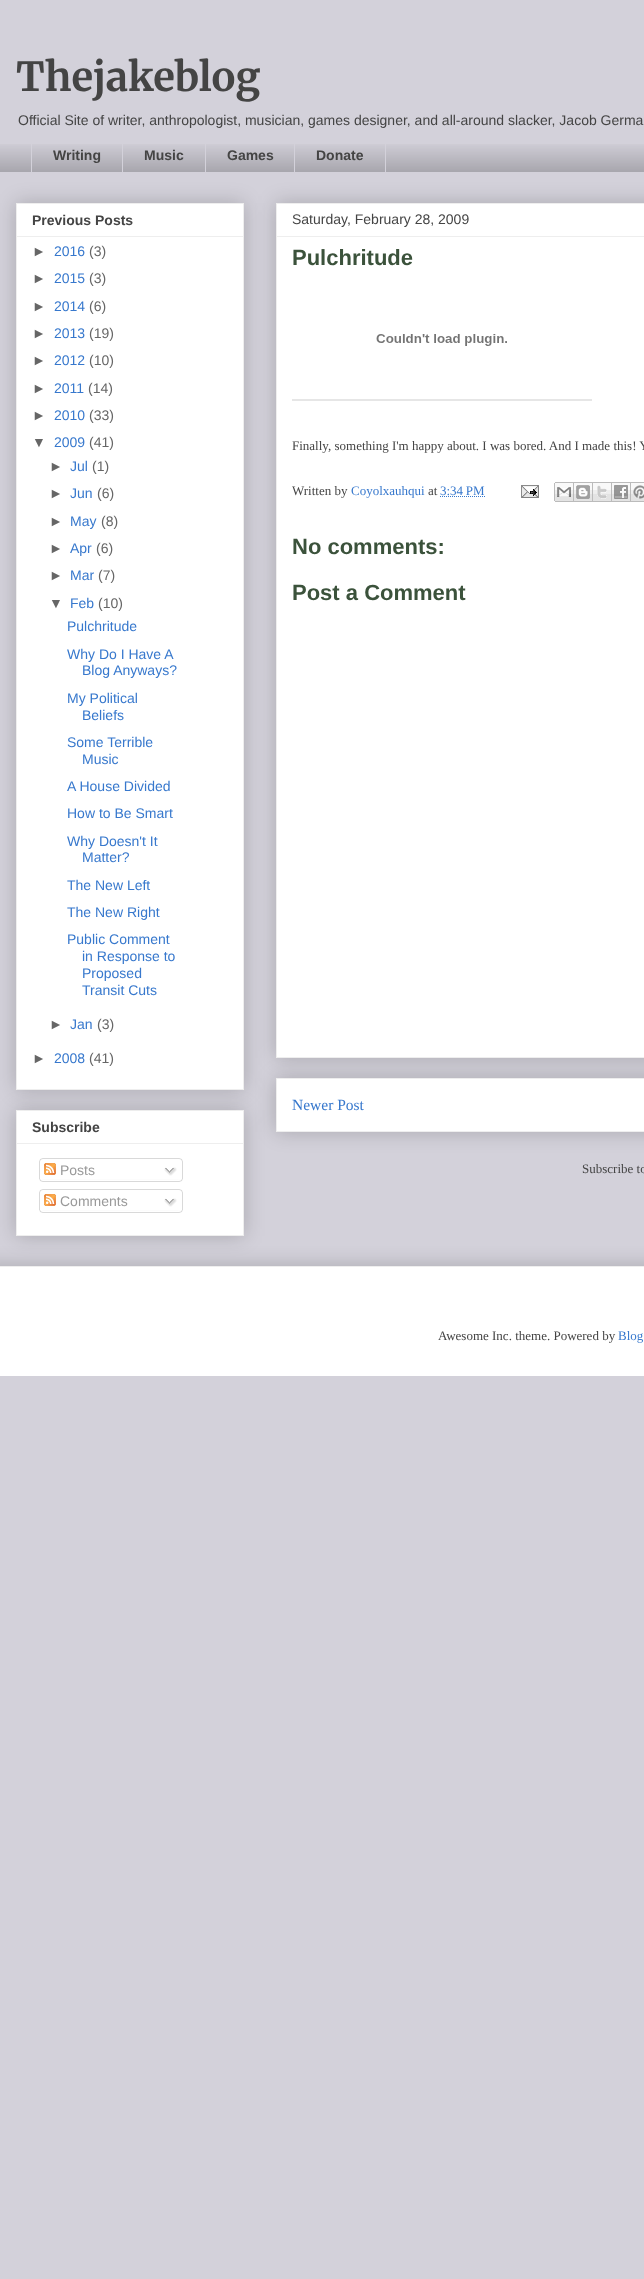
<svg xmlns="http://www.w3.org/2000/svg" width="644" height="2279">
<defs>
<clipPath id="clip1"><rect x="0" y="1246" width="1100" height="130"/></clipPath>
</defs>
<rect width="100%" height="100%" fill="#d3d1da"/>
<text x="16" y="91" style="font-family:Merriweather;font-size:40px;font-weight:300;fill:#444">Thejakeblog</text>
<text x="18" y="125" style="font-family:Liberation Sans;font-size:14px;fill:#444">Official Site of writer, anthropologist, musician, games designer, and all-around slacker, Jacob Germa</text>
<image x="0" y="144" width="644" height="28" href="media/1.png"/>
<rect x="31" y="138" width="1" height="35" fill="#d3d1da"/>
<text x="53" y="160" style="font-family:Liberation Sans;font-size:14px;font-weight:bold;fill:#444">Writing</text>
<rect x="122" y="138" width="1" height="35" fill="#d3d1da"/>
<text x="144" y="160" style="font-family:Liberation Sans;font-size:14px;font-weight:bold;fill:#444">Music</text>
<rect x="205" y="138" width="1" height="35" fill="#d3d1da"/>
<text x="227" y="160" style="font-family:Liberation Sans;font-size:14px;font-weight:bold;fill:#444">Games</text>
<rect x="294.5" y="138.5" width="91" height="34" fill="none" stroke="#d3d1da"/>
<text x="316" y="160" style="font-family:Liberation Sans;font-size:14px;font-weight:bold;fill:#444">Donate</text>
<rect x="16" y="1110" width="228" height="126" fill="#00000033" filter="blur(10px)"/>
<rect x="16.5" y="1110.5" width="227" height="125" fill="#fff" stroke="#eee"/>
<rect x="16" y="203" width="228" height="887" fill="#00000033" filter="blur(10px)"/>
<rect x="16.5" y="203.5" width="227" height="886" fill="#fff" stroke="#eee"/>
<text x="32" y="225" style="font-family:Liberation Sans;font-size:14px;font-weight:bold;fill:#444">Previous Posts</text>
<rect x="17" y="236" width="226" height="1" fill="#eee"/>
<text x="32" y="256" style="font-family:Liberation Sans;font-size:14px;fill:#666">►</text>
<text x="54" y="256" style="font-family:Liberation Sans;font-size:14px;fill:#3778cd">2016</text>
<text x="89" y="256" style="font-family:Liberation Sans;font-size:14px;fill:#666">(3)</text>
<text x="32" y="283" style="font-family:Liberation Sans;font-size:14px;fill:#666">►</text>
<text x="54" y="283" style="font-family:Liberation Sans;font-size:14px;fill:#3778cd">2015</text>
<text x="89" y="283" style="font-family:Liberation Sans;font-size:14px;fill:#666">(3)</text>
<text x="32" y="311" style="font-family:Liberation Sans;font-size:14px;fill:#666">►</text>
<text x="54" y="311" style="font-family:Liberation Sans;font-size:14px;fill:#3778cd">2014</text>
<text x="89" y="311" style="font-family:Liberation Sans;font-size:14px;fill:#666">(6)</text>
<text x="32" y="338" style="font-family:Liberation Sans;font-size:14px;fill:#666">►</text>
<text x="54" y="338" style="font-family:Liberation Sans;font-size:14px;fill:#3778cd">2013</text>
<text x="89" y="338" style="font-family:Liberation Sans;font-size:14px;fill:#666">(19)</text>
<text x="32" y="365" style="font-family:Liberation Sans;font-size:14px;fill:#666">►</text>
<text x="54" y="365" style="font-family:Liberation Sans;font-size:14px;fill:#3778cd">2012</text>
<text x="89" y="365" style="font-family:Liberation Sans;font-size:14px;fill:#666">(10)</text>
<text x="32" y="393" style="font-family:Liberation Sans;font-size:14px;fill:#666">►</text>
<text x="54" y="393" style="font-family:Liberation Sans;font-size:14px;fill:#3778cd">2011</text>
<text x="88" y="393" style="font-family:Liberation Sans;font-size:14px;fill:#666">(14)</text>
<text x="32" y="420" style="font-family:Liberation Sans;font-size:14px;fill:#666">►</text>
<text x="54" y="420" style="font-family:Liberation Sans;font-size:14px;fill:#3778cd">2010</text>
<text x="89" y="420" style="font-family:Liberation Sans;font-size:14px;fill:#666">(33)</text>
<text x="32" y="447" style="font-family:Liberation Sans;font-size:14px;fill:#666">▼</text>
<text x="54" y="447" style="font-family:Liberation Sans;font-size:14px;fill:#3778cd">2009</text>
<text x="89" y="447" style="font-family:Liberation Sans;font-size:14px;fill:#666">(41)</text>
<text x="49" y="471" style="font-family:Liberation Sans;font-size:14px;fill:#666">►</text>
<text x="70" y="471" style="font-family:Liberation Sans;font-size:14px;fill:#3778cd">Jul</text>
<text x="92" y="471" style="font-family:Liberation Sans;font-size:14px;fill:#666">(1)</text>
<text x="49" y="498" style="font-family:Liberation Sans;font-size:14px;fill:#666">►</text>
<text x="70" y="498" style="font-family:Liberation Sans;font-size:14px;fill:#3778cd">Jun</text>
<text x="97" y="498" style="font-family:Liberation Sans;font-size:14px;fill:#666">(6)</text>
<text x="49" y="526" style="font-family:Liberation Sans;font-size:14px;fill:#666">►</text>
<text x="70" y="526" style="font-family:Liberation Sans;font-size:14px;fill:#3778cd">May</text>
<text x="101" y="526" style="font-family:Liberation Sans;font-size:14px;fill:#666">(8)</text>
<text x="49" y="553" style="font-family:Liberation Sans;font-size:14px;fill:#666">►</text>
<text x="70" y="553" style="font-family:Liberation Sans;font-size:14px;fill:#3778cd">Apr</text>
<text x="96" y="553" style="font-family:Liberation Sans;font-size:14px;fill:#666">(6)</text>
<text x="49" y="580" style="font-family:Liberation Sans;font-size:14px;fill:#666">►</text>
<text x="70" y="580" style="font-family:Liberation Sans;font-size:14px;fill:#3778cd">Mar</text>
<text x="98" y="580" style="font-family:Liberation Sans;font-size:14px;fill:#666">(7)</text>
<text x="49" y="608" style="font-family:Liberation Sans;font-size:14px;fill:#666">▼</text>
<text x="70" y="608" style="font-family:Liberation Sans;font-size:14px;fill:#3778cd">Feb</text>
<text x="98" y="608" style="font-family:Liberation Sans;font-size:14px;fill:#666">(10)</text>
<text x="67" y="631" style="font-family:Liberation Sans;font-size:14px;fill:#3778cd">Pulchritude</text>
<text x="67" y="659" style="font-family:Liberation Sans;font-size:14px;fill:#3778cd">Why Do I Have A</text>
<text x="82" y="675" style="font-family:Liberation Sans;font-size:14px;fill:#3778cd">Blog Anyways?</text>
<text x="67" y="703" style="font-family:Liberation Sans;font-size:14px;fill:#3778cd">My Political</text>
<text x="82" y="720" style="font-family:Liberation Sans;font-size:14px;fill:#3778cd">Beliefs</text>
<text x="67" y="747" style="font-family:Liberation Sans;font-size:14px;fill:#3778cd">Some Terrible</text>
<text x="82" y="764" style="font-family:Liberation Sans;font-size:14px;fill:#3778cd">Music</text>
<text x="67" y="791" style="font-family:Liberation Sans;font-size:14px;fill:#3778cd">A House Divided</text>
<text x="67" y="818" style="font-family:Liberation Sans;font-size:14px;fill:#3778cd">How to Be Smart</text>
<text x="67" y="846" style="font-family:Liberation Sans;font-size:14px;fill:#3778cd">Why Doesn't It</text>
<text x="82" y="862" style="font-family:Liberation Sans;font-size:14px;fill:#3778cd">Matter?</text>
<text x="67" y="890" style="font-family:Liberation Sans;font-size:14px;fill:#3778cd">The New Left</text>
<text x="67" y="917" style="font-family:Liberation Sans;font-size:14px;fill:#3778cd">The New Right</text>
<text x="67" y="944" style="font-family:Liberation Sans;font-size:14px;fill:#3778cd">Public Comment</text>
<text x="82" y="961" style="font-family:Liberation Sans;font-size:14px;fill:#3778cd">in Response to</text>
<text x="82" y="978" style="font-family:Liberation Sans;font-size:14px;fill:#3778cd">Proposed</text>
<text x="82" y="995" style="font-family:Liberation Sans;font-size:14px;fill:#3778cd">Transit Cuts</text>
<text x="49" y="1029" style="font-family:Liberation Sans;font-size:14px;fill:#666">►</text>
<text x="70" y="1029" style="font-family:Liberation Sans;font-size:14px;fill:#3778cd">Jan</text>
<text x="97" y="1029" style="font-family:Liberation Sans;font-size:14px;fill:#666">(3)</text>
<text x="32" y="1063" style="font-family:Liberation Sans;font-size:14px;fill:#666">►</text>
<text x="54" y="1063" style="font-family:Liberation Sans;font-size:14px;fill:#3778cd">2008</text>
<text x="89" y="1063" style="font-family:Liberation Sans;font-size:14px;fill:#666">(41)</text>
<text x="32" y="1132" style="font-family:Liberation Sans;font-size:14px;font-weight:bold;fill:#444">Subscribe</text>
<rect x="17" y="1143" width="226" height="1" fill="#eee"/>
<image x="39" y="1158" width="144" height="21" href="media/2.png"/>
<image x="44" y="1163" width="12" height="12" href="media/3.png"/>
<text x="60" y="1175" style="font-family:Liberation Sans;font-size:14px;fill:#999">Posts</text>
<image x="164" y="1167" width="13" height="9" href="media/4.png"/>
<image x="39" y="1179" width="144" height="3" href="media/5.png"/>
<image x="39" y="1189" width="144" height="21" href="media/2.png"/>
<image x="44" y="1194" width="12" height="12" href="media/3.png"/>
<text x="60" y="1206" style="font-family:Liberation Sans;font-size:14px;fill:#999">Comments</text>
<image x="164" y="1198" width="13" height="9" href="media/4.png"/>
<image x="39" y="1210" width="144" height="3" href="media/5.png"/>
<rect x="276" y="1078" width="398" height="54" fill="#00000033" filter="blur(10px)"/>
<rect x="276.5" y="1078.5" width="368" height="53" fill="#fff" stroke="#eee"/>
<rect x="276" y="203" width="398" height="855" fill="#00000033" filter="blur(10px)"/>
<rect x="276.5" y="203.5" width="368" height="854" fill="#fff" stroke="#eee"/>
<text x="292" y="224" style="font-family:Liberation Sans;font-size:14px;fill:#444">Saturday, February 28, 2009</text>
<rect x="277" y="236" width="367" height="1" fill="#eee"/>
<text x="292" y="265" style="font-family:Liberation Sans;font-size:22px;font-weight:bold;fill:#3b523b">Pulchritude</text>
<image x="376" y="334" width="131" height="12" href="media/6.png"/>
<rect x="292" y="399" width="300" height="2" fill="#e6e6e6"/>
<text x="292" y="450" style="font-family:Liberation Serif;font-size:13px;fill:#444">Finally, something I'm happy about. I was bored. And I made this! Y</text>
<text x="292" y="495" style="font-family:Liberation Serif;font-size:13px;fill:#444">Written by</text>
<text x="351" y="495" style="font-family:Liberation Serif;font-size:13px;fill:#3778cd">Coyolxauhqui</text>
<text x="428" y="495" style="font-family:Liberation Serif;font-size:13px;fill:#444">at</text>
<text x="440" y="495" style="font-family:Liberation Serif;font-size:13px;fill:#3778cd">3:34 PM</text>
<path d="M440 496.5h45" fill="none" stroke="#3778cd" stroke-dasharray="1 1"/>
<image x="521" y="485" width="18" height="13" href="media/7.png"/>
<image x="554" y="482" width="20" height="20" href="media/8.png"/>
<image x="574" y="482" width="19" height="20" href="media/9.png"/>
<image x="593" y="482" width="19" height="20" href="media/10.png"/>
<image x="612" y="482" width="19" height="20" href="media/11.png"/>
<image x="631" y="482" width="13" height="20" href="media/12.png"/>
<text x="292" y="554" style="font-family:Liberation Sans;font-size:22px;font-weight:bold;fill:#3b523b">No comments:</text>
<text x="292" y="600" style="font-family:Liberation Sans;font-size:22px;font-weight:bold;fill:#3b523b">Post a Comment</text>
<text x="292" y="1110" style="font-family:Liberation Serif;font-size:15.5px;fill:#3778cd">Newer Post</text>
<text x="582" y="1173" style="font-family:Liberation Serif;font-size:13px;fill:#444">Subscribe to</text>
<g clip-path="url(#clip1)">
<rect x="-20" y="1266" width="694" height="110" fill="#00000033" filter="blur(10px)"/>
</g>
<rect y="1267" width="644" height="109" fill="#fff"/>
<rect y="1266" width="644" height="1" fill="#eee"/>
<text x="438" y="1340" style="font-family:Liberation Serif;font-size:13px;fill:#444">Awesome Inc. theme. Powered by</text>
<text x="618" y="1340" style="font-family:Liberation Serif;font-size:13px;fill:#3778cd">Blog</text>
</svg>
